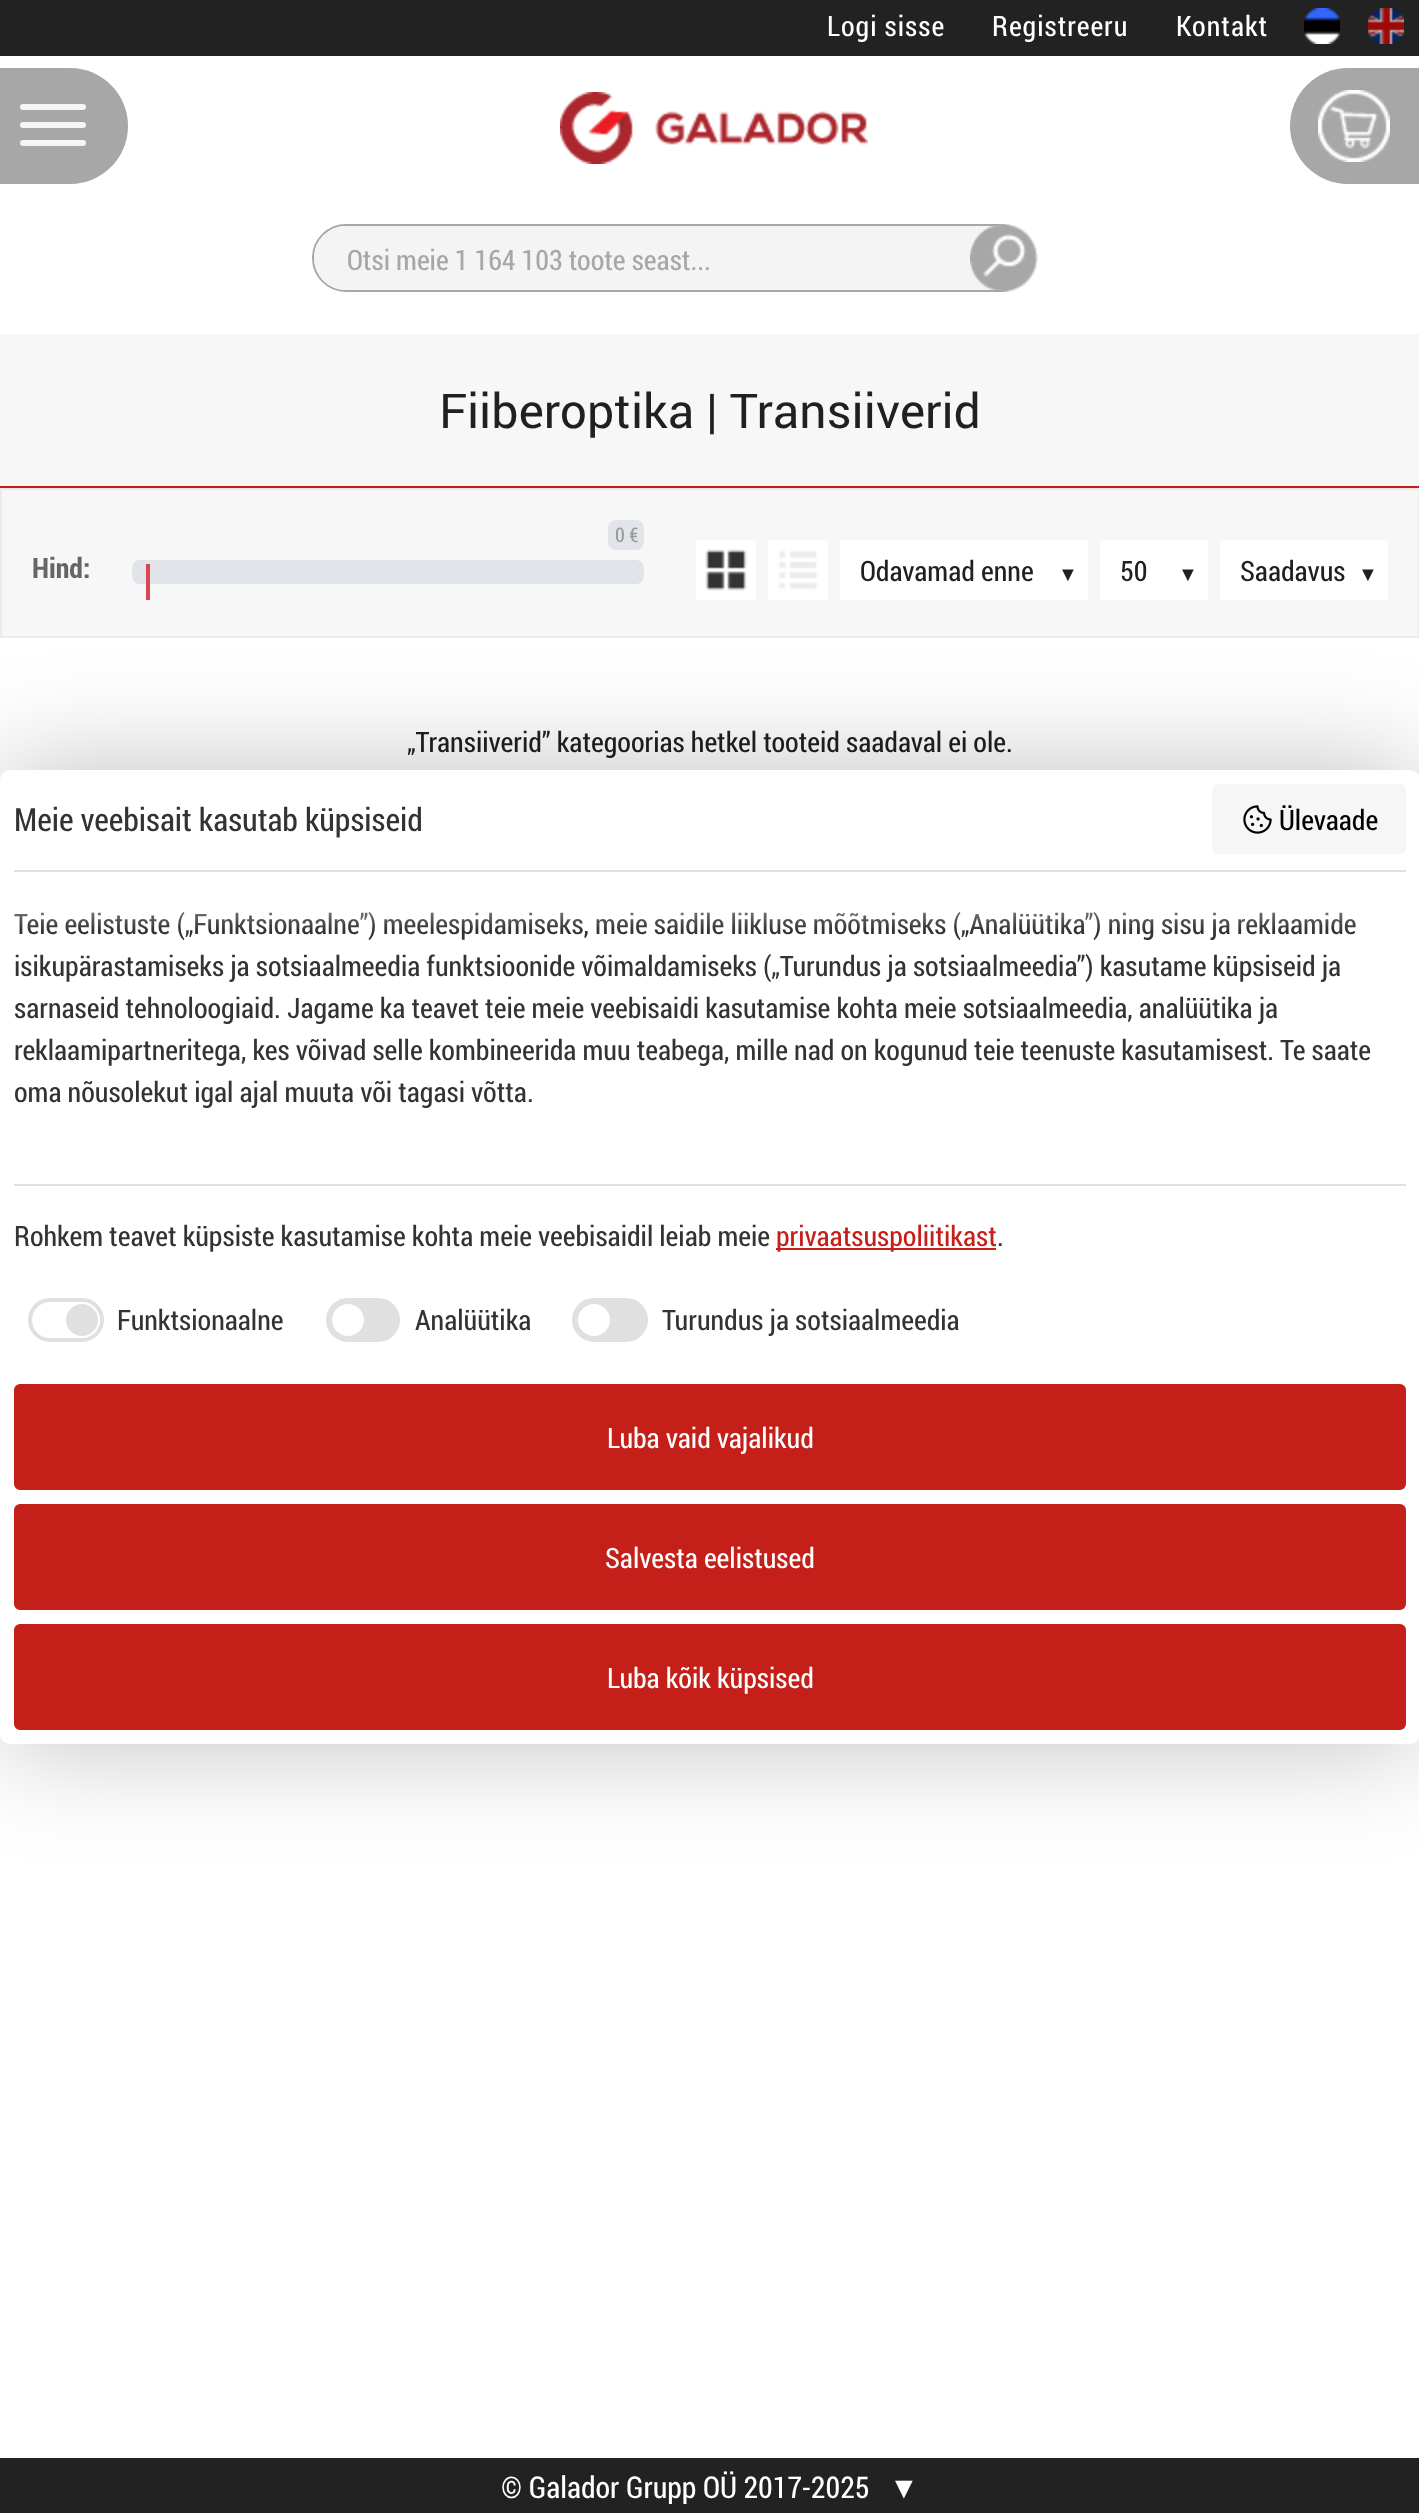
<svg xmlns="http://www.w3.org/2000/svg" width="1419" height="2513">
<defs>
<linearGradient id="g1" gradientUnits="userSpaceOnUse" x1="710" y1="930" x2="710" y2="870"><stop offset="0" stop-color="#fff" stop-opacity="0"/><stop offset="1" stop-color="#fff"/></linearGradient>
</defs>
<rect width="100%" height="100%" fill="#fff"/>
<rect width="1419" height="56" fill="#222"/>
<text x="827" y="36" style="font-family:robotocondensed;font-size:28px;letter-spacing:1px;fill:#fff">Logi sisse</text>
<text x="992" y="36" style="font-family:robotocondensed;font-size:28px;letter-spacing:1px;fill:#fff">Registreeru</text>
<text x="1176" y="36" style="font-family:robotocondensed;font-size:28px;letter-spacing:1px;fill:#fff">Kontakt</text>
<image x="1304" y="8" width="36" height="36" href="media/1.png"/>
<image x="1368" y="8" width="36" height="36" href="media/2.png"/>
<path d="M0 68h70c32 0 58 26 58 58c0 32-26 58-58 58h-70z" fill="#a7a7a7"/>
<rect x="20" y="104" width="66" height="6" rx="3" fill="#f5f5f5"/>
<rect x="20" y="122" width="66" height="6" rx="3" fill="#f5f5f5"/>
<rect x="20" y="140" width="66" height="6" rx="3" fill="#f5f5f5"/>
<image x="560" y="92" width="308" height="72" href="media/3.png"/>
<path d="M1348 68h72v116h-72c-32 0-58-26-58-58c0-32 26-58 58-58z" fill="#a7a7a7"/>
<image x="1318" y="90" width="72" height="72" href="media/4.png"/>
<rect x="313" y="225" width="718" height="66" rx="33" fill="none" stroke="#a7a7a7" stroke-width="2"/>
<rect x="314" y="226" width="716" height="64" rx="32" fill="#f4f4f4"/>
<text x="347" y="270" style="font-family:robotocondensed;font-size:28px;fill:#a7a7a7">Otsi meie 1 164 103 toote seast...</text>
<image x="970" y="224" width="68" height="68" href="media/5.png"/>
<rect y="334" width="1419" height="152" fill="#f7f7f7"/>
<rect y="486" width="1419" height="2" fill="#c41f19"/>
<text x="439" y="428" style="font-family:roboto;font-size:48px;fill:#202020">Fiiberoptika | Transiiverid</text>
<rect x="1" y="489" width="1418" height="148" fill="#f7f7f7" stroke="#ebebeb" stroke-width="2"/>
<rect x="608" y="520" width="36" height="30" rx="8" fill="#e1e4e9"/>
<text x="615" y="542" style="font-family:robotocondensed;font-size:20px;fill:#999">0 €</text>
<rect x="132" y="560" width="512" height="24" rx="8" fill="#e1e4e9"/>
<rect x="146" y="564" width="4" height="36" fill="#da4453"/>
<text x="32" y="578" style="font-family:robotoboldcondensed;font-size:28px;font-weight:bold;fill:#666">Hind:</text>
<image x="696" y="540" width="60" height="60" href="media/6.png"/>
<image x="768" y="540" width="60" height="60" href="media/7.png"/>
<rect x="840" y="540" width="248" height="60" fill="#fff"/>
<text x="860" y="581" style="font-family:robotocondensed;font-size:28px;fill:#202020">Odavamad enne</text>
<text x="1058" y="581" style="font-family:Liberation Serif;font-size:20px;fill:#202020">▼</text>
<rect x="1100" y="540" width="108" height="60" fill="#fff"/>
<text x="1120" y="581" style="font-family:robotocondensed;font-size:28px;fill:#202020">50</text>
<text x="1178" y="581" style="font-family:Liberation Serif;font-size:20px;fill:#202020">▼</text>
<rect x="1220" y="540" width="168" height="60" fill="#fff"/>
<text x="1240" y="581" style="font-family:robotocondensed;font-size:28px;fill:#202020">Saadavus</text>
<text x="1358" y="581" style="font-family:Liberation Serif;font-size:20px;fill:#202020">▼</text>
<text x="407" y="752" style="font-family:robotocondensed;font-size:28px;fill:#202020">„Transiiverid” kategoorias hetkel tooteid saadaval ei ole.</text>
<rect y="770" width="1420" height="974" rx="10" fill="#00000040" filter="blur(56px)"/>
<rect y="770" width="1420" height="974" rx="10" fill="#fff"/>
<text x="14" y="831" style="font-family:robotocondensed;font-size:32px;fill:#333">Meie veebisait kasutab küpsiseid</text>
<rect x="1212" y="784" width="194" height="70" rx="6" fill="#f6f6f6"/>
<image x="1243" y="805" width="29" height="29" href="media/8.png"/>
<text x="1279" y="830" style="font-family:robotocondensed;font-size:28px;fill:#000">Ülevaade</text>
<rect x="14" y="870" width="1392" height="2" fill="#e0e0e0"/>
<rect x="14" y="1184" width="1392" height="2" fill="#e0e0e0"/>
<text x="14" y="934" style="font-family:robotocondensed;font-size:28px;fill:#333">Teie eelistuste („Funktsionaalne”) meelespidamiseks, meie saidile liikluse mõõtmiseks („Analüütika”) ning sisu ja reklaamide</text>
<text x="14" y="976" style="font-family:robotocondensed;font-size:28px;fill:#333">isikupärastamiseks ja sotsiaalmeedia funktsioonide võimaldamiseks („Turundus ja sotsiaalmeedia”) kasutame küpsiseid ja</text>
<text x="14" y="1018" style="font-family:robotocondensed;font-size:28px;fill:#333">sarnaseid tehnoloogiaid. Jagame ka teavet teie meie veebisaidi kasutamise kohta meie sotsiaalmeedia, analüütika ja</text>
<text x="14" y="1060" style="font-family:robotocondensed;font-size:28px;fill:#333">reklaamipartneritega, kes võivad selle kombineerida muu teabega, mille nad on kogunud teie teenuste kasutamisest. Te saate</text>
<text x="14" y="1102" style="font-family:robotocondensed;font-size:28px;fill:#333">oma nõusolekut igal ajal muuta või tagasi võtta.</text>
<rect x="14" y="911" width="1342" height="18" fill="url(#g1)"/>
<text x="14" y="1246" style="font-family:robotocondensed;font-size:28px;fill:#333">Rohkem teavet küpsiste kasutamise kohta meie veebisaidil leiab meie</text>
<rect x="776" y="1248" width="220" height="2" fill="#c41f19"/>
<text x="776" y="1246" style="font-family:robotocondensed;font-size:28px;fill:#c41f19">privaatsuspoliitikast</text>
<text x="997" y="1246" style="font-family:robotocondensed;font-size:28px;fill:#333">.</text>
<rect x="30" y="1300" width="72" height="40" rx="20" fill="none" stroke="#e0e0e0" stroke-width="4"/>
<circle cx="82" cy="1320" r="16" fill="#e0e0e0"/>
<text x="117" y="1330" style="font-family:robotocondensed;font-size:28px;fill:#333">Funktsionaalne</text>
<rect x="328" y="1300" width="70" height="40" rx="20" fill="#e0e0e0" stroke="#e0e0e0" stroke-width="4"/>
<circle cx="348" cy="1320" r="16" fill="#fff"/>
<text x="415" y="1330" style="font-family:robotocondensed;font-size:28px;fill:#333">Analüütika</text>
<rect x="574" y="1300" width="72" height="40" rx="20" fill="#e0e0e0" stroke="#e0e0e0" stroke-width="4"/>
<circle cx="594" cy="1320" r="16" fill="#fff"/>
<text x="662" y="1330" style="font-family:robotocondensed;font-size:28px;fill:#333">Turundus ja sotsiaalmeedia</text>
<rect x="16" y="1386" width="1388" height="102" rx="4" fill="#c41f19" stroke="#c41f19" stroke-width="4"/>
<text x="607" y="1448" style="font-family:robotocondensed;font-size:28px;fill:#fff">Luba vaid vajalikud</text>
<rect x="16" y="1506" width="1388" height="102" rx="4" fill="#c41f19" stroke="#c41f19" stroke-width="4"/>
<text x="605" y="1568" style="font-family:robotocondensed;font-size:28px;fill:#fff">Salvesta eelistused</text>
<rect x="16" y="1626" width="1388" height="102" rx="4" fill="#c41f19" stroke="#c41f19" stroke-width="4"/>
<text x="607" y="1688" style="font-family:robotocondensed;font-size:28px;fill:#fff">Luba kõik küpsised</text>
<rect y="2458" width="1419" height="55" fill="#222"/>
<text x="501" y="2498" style="font-family:robotocondensed;font-size:30px;fill:#fff">© Galador Grupp OÜ 2017-2025</text>
<text x="889" y="2498" style="font-family:Liberation Serif;font-size:30px;fill:#fff">▼</text>
</svg>
